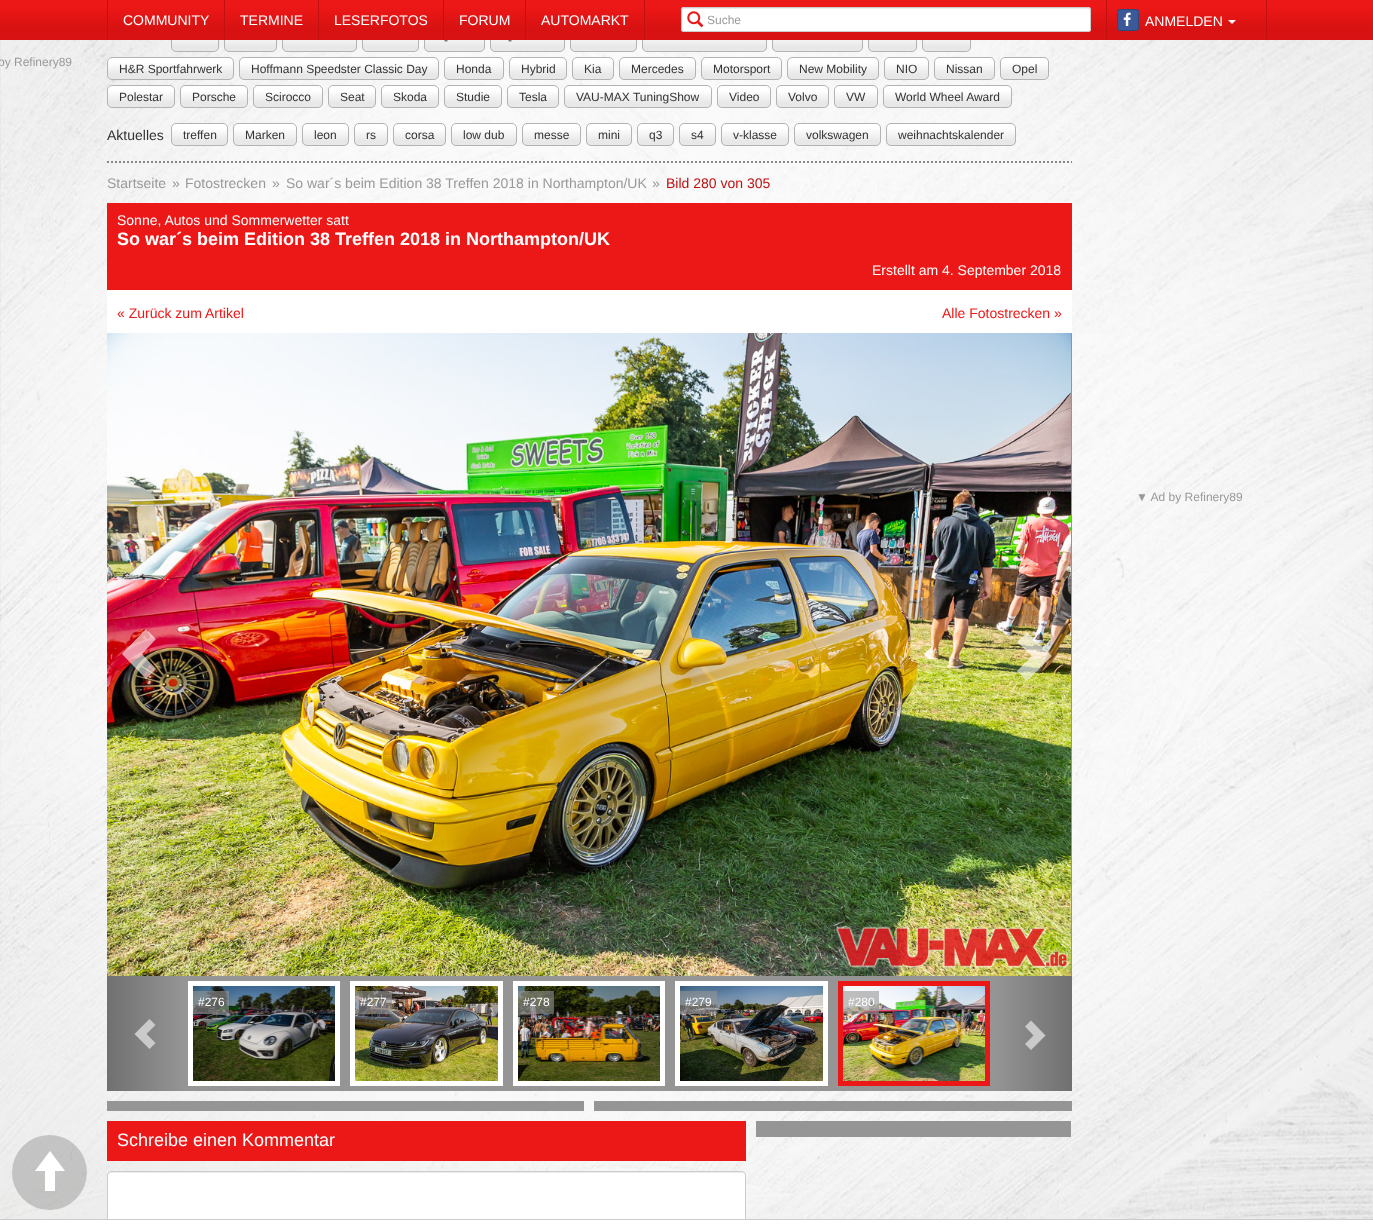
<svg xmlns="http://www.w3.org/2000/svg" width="1373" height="1230">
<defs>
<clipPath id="clip1"><rect x="171" y="28" width="48" height="24" rx="5"/></clipPath>
<linearGradient id="g1" gradientUnits="userSpaceOnUse" x1="195" y1="29" x2="195" y2="51"><stop offset="0.2" stop-color="#fff"/><stop offset="0.8" stop-color="#e8e8e8"/></linearGradient>
<clipPath id="clip2"><rect x="224" y="28" width="53" height="24" rx="5"/></clipPath>
<linearGradient id="g2" gradientUnits="userSpaceOnUse" x1="251" y1="29" x2="251" y2="51"><stop offset="0.2" stop-color="#fff"/><stop offset="0.8" stop-color="#e8e8e8"/></linearGradient>
<clipPath id="clip3"><rect x="282" y="28" width="75" height="24" rx="5"/></clipPath>
<linearGradient id="g3" gradientUnits="userSpaceOnUse" x1="320" y1="29" x2="320" y2="51"><stop offset="0.2" stop-color="#fff"/><stop offset="0.8" stop-color="#e8e8e8"/></linearGradient>
<clipPath id="clip4"><rect x="362" y="28" width="57" height="24" rx="5"/></clipPath>
<linearGradient id="g4" gradientUnits="userSpaceOnUse" x1="391" y1="29" x2="391" y2="51"><stop offset="0.2" stop-color="#fff"/><stop offset="0.8" stop-color="#e8e8e8"/></linearGradient>
<clipPath id="clip5"><rect x="424" y="28" width="61" height="24" rx="5"/></clipPath>
<linearGradient id="g5" gradientUnits="userSpaceOnUse" x1="455" y1="29" x2="455" y2="51"><stop offset="0.2" stop-color="#fff"/><stop offset="0.8" stop-color="#e8e8e8"/></linearGradient>
<clipPath id="clip6"><rect x="490" y="28" width="75" height="24" rx="5"/></clipPath>
<linearGradient id="g6" gradientUnits="userSpaceOnUse" x1="528" y1="29" x2="528" y2="51"><stop offset="0.2" stop-color="#fff"/><stop offset="0.8" stop-color="#e8e8e8"/></linearGradient>
<clipPath id="clip7"><rect x="570" y="28" width="67" height="24" rx="5"/></clipPath>
<linearGradient id="g7" gradientUnits="userSpaceOnUse" x1="604" y1="29" x2="604" y2="51"><stop offset="0.2" stop-color="#fff"/><stop offset="0.8" stop-color="#e8e8e8"/></linearGradient>
<clipPath id="clip8"><rect x="642" y="28" width="125" height="24" rx="5"/></clipPath>
<linearGradient id="g8" gradientUnits="userSpaceOnUse" x1="705" y1="29" x2="705" y2="51"><stop offset="0.2" stop-color="#fff"/><stop offset="0.8" stop-color="#e8e8e8"/></linearGradient>
<clipPath id="clip9"><rect x="772" y="28" width="91" height="24" rx="5"/></clipPath>
<linearGradient id="g9" gradientUnits="userSpaceOnUse" x1="818" y1="29" x2="818" y2="51"><stop offset="0.2" stop-color="#fff"/><stop offset="0.8" stop-color="#e8e8e8"/></linearGradient>
<clipPath id="clip10"><rect x="868" y="28" width="49" height="24" rx="5"/></clipPath>
<linearGradient id="g10" gradientUnits="userSpaceOnUse" x1="893" y1="29" x2="893" y2="51"><stop offset="0.2" stop-color="#fff"/><stop offset="0.8" stop-color="#e8e8e8"/></linearGradient>
<clipPath id="clip11"><rect x="922" y="28" width="49" height="24" rx="5"/></clipPath>
<linearGradient id="g11" gradientUnits="userSpaceOnUse" x1="947" y1="29" x2="947" y2="51"><stop offset="0.2" stop-color="#fff"/><stop offset="0.8" stop-color="#e8e8e8"/></linearGradient>
<linearGradient id="g12" gradientUnits="userSpaceOnUse" x1="687" y1="0" x2="687" y2="40"><stop offset="0.2" stop-color="#ec1717"/><stop offset="0.7" stop-color="#d81212"/></linearGradient>
<clipPath id="clip12"><rect x="107" y="57" width="127" height="23" rx="5"/></clipPath>
<linearGradient id="g13" gradientUnits="userSpaceOnUse" x1="171" y1="58" x2="171" y2="79"><stop offset="0.2" stop-color="#fff"/><stop offset="0.8" stop-color="#e8e8e8"/></linearGradient>
<clipPath id="clip13"><rect x="239" y="57" width="200" height="23" rx="5"/></clipPath>
<linearGradient id="g14" gradientUnits="userSpaceOnUse" x1="339" y1="58" x2="339" y2="79"><stop offset="0.2" stop-color="#fff"/><stop offset="0.8" stop-color="#e8e8e8"/></linearGradient>
<clipPath id="clip14"><rect x="444" y="57" width="60" height="23" rx="5"/></clipPath>
<linearGradient id="g15" gradientUnits="userSpaceOnUse" x1="474" y1="58" x2="474" y2="79"><stop offset="0.2" stop-color="#fff"/><stop offset="0.8" stop-color="#e8e8e8"/></linearGradient>
<clipPath id="clip15"><rect x="509" y="57" width="58" height="23" rx="5"/></clipPath>
<linearGradient id="g16" gradientUnits="userSpaceOnUse" x1="538" y1="58" x2="538" y2="79"><stop offset="0.2" stop-color="#fff"/><stop offset="0.8" stop-color="#e8e8e8"/></linearGradient>
<clipPath id="clip16"><rect x="572" y="57" width="42" height="23" rx="5"/></clipPath>
<linearGradient id="g17" gradientUnits="userSpaceOnUse" x1="593" y1="58" x2="593" y2="79"><stop offset="0.2" stop-color="#fff"/><stop offset="0.8" stop-color="#e8e8e8"/></linearGradient>
<clipPath id="clip17"><rect x="619" y="57" width="77" height="23" rx="5"/></clipPath>
<linearGradient id="g18" gradientUnits="userSpaceOnUse" x1="658" y1="58" x2="658" y2="79"><stop offset="0.2" stop-color="#fff"/><stop offset="0.8" stop-color="#e8e8e8"/></linearGradient>
<clipPath id="clip18"><rect x="701" y="57" width="81" height="23" rx="5"/></clipPath>
<linearGradient id="g19" gradientUnits="userSpaceOnUse" x1="742" y1="58" x2="742" y2="79"><stop offset="0.2" stop-color="#fff"/><stop offset="0.8" stop-color="#e8e8e8"/></linearGradient>
<clipPath id="clip19"><rect x="787" y="57" width="92" height="23" rx="5"/></clipPath>
<linearGradient id="g20" gradientUnits="userSpaceOnUse" x1="833" y1="58" x2="833" y2="79"><stop offset="0.2" stop-color="#fff"/><stop offset="0.8" stop-color="#e8e8e8"/></linearGradient>
<clipPath id="clip20"><rect x="884" y="57" width="45" height="23" rx="5"/></clipPath>
<linearGradient id="g21" gradientUnits="userSpaceOnUse" x1="907" y1="58" x2="907" y2="79"><stop offset="0.2" stop-color="#fff"/><stop offset="0.8" stop-color="#e8e8e8"/></linearGradient>
<clipPath id="clip21"><rect x="934" y="57" width="61" height="23" rx="5"/></clipPath>
<linearGradient id="g22" gradientUnits="userSpaceOnUse" x1="965" y1="58" x2="965" y2="79"><stop offset="0.2" stop-color="#fff"/><stop offset="0.8" stop-color="#e8e8e8"/></linearGradient>
<clipPath id="clip22"><rect x="1000" y="57" width="49" height="23" rx="5"/></clipPath>
<linearGradient id="g23" gradientUnits="userSpaceOnUse" x1="1025" y1="58" x2="1025" y2="79"><stop offset="0.2" stop-color="#fff"/><stop offset="0.8" stop-color="#e8e8e8"/></linearGradient>
<clipPath id="clip23"><rect x="107" y="85" width="68" height="23" rx="5"/></clipPath>
<linearGradient id="g24" gradientUnits="userSpaceOnUse" x1="141" y1="86" x2="141" y2="107"><stop offset="0.2" stop-color="#fff"/><stop offset="0.8" stop-color="#e8e8e8"/></linearGradient>
<clipPath id="clip24"><rect x="180" y="85" width="68" height="23" rx="5"/></clipPath>
<linearGradient id="g25" gradientUnits="userSpaceOnUse" x1="214" y1="86" x2="214" y2="107"><stop offset="0.2" stop-color="#fff"/><stop offset="0.8" stop-color="#e8e8e8"/></linearGradient>
<clipPath id="clip25"><rect x="253" y="85" width="70" height="23" rx="5"/></clipPath>
<linearGradient id="g26" gradientUnits="userSpaceOnUse" x1="288" y1="86" x2="288" y2="107"><stop offset="0.2" stop-color="#fff"/><stop offset="0.8" stop-color="#e8e8e8"/></linearGradient>
<clipPath id="clip26"><rect x="328" y="85" width="48" height="23" rx="5"/></clipPath>
<linearGradient id="g27" gradientUnits="userSpaceOnUse" x1="352" y1="86" x2="352" y2="107"><stop offset="0.2" stop-color="#fff"/><stop offset="0.8" stop-color="#e8e8e8"/></linearGradient>
<clipPath id="clip27"><rect x="381" y="85" width="58" height="23" rx="5"/></clipPath>
<linearGradient id="g28" gradientUnits="userSpaceOnUse" x1="410" y1="86" x2="410" y2="107"><stop offset="0.2" stop-color="#fff"/><stop offset="0.8" stop-color="#e8e8e8"/></linearGradient>
<clipPath id="clip28"><rect x="444" y="85" width="58" height="23" rx="5"/></clipPath>
<linearGradient id="g29" gradientUnits="userSpaceOnUse" x1="473" y1="86" x2="473" y2="107"><stop offset="0.2" stop-color="#fff"/><stop offset="0.8" stop-color="#e8e8e8"/></linearGradient>
<clipPath id="clip29"><rect x="507" y="85" width="52" height="23" rx="5"/></clipPath>
<linearGradient id="g30" gradientUnits="userSpaceOnUse" x1="533" y1="86" x2="533" y2="107"><stop offset="0.2" stop-color="#fff"/><stop offset="0.8" stop-color="#e8e8e8"/></linearGradient>
<clipPath id="clip30"><rect x="564" y="85" width="148" height="23" rx="5"/></clipPath>
<linearGradient id="g31" gradientUnits="userSpaceOnUse" x1="638" y1="86" x2="638" y2="107"><stop offset="0.2" stop-color="#fff"/><stop offset="0.8" stop-color="#e8e8e8"/></linearGradient>
<clipPath id="clip31"><rect x="717" y="85" width="54" height="23" rx="5"/></clipPath>
<linearGradient id="g32" gradientUnits="userSpaceOnUse" x1="744" y1="86" x2="744" y2="107"><stop offset="0.2" stop-color="#fff"/><stop offset="0.8" stop-color="#e8e8e8"/></linearGradient>
<clipPath id="clip32"><rect x="776" y="85" width="53" height="23" rx="5"/></clipPath>
<linearGradient id="g33" gradientUnits="userSpaceOnUse" x1="803" y1="86" x2="803" y2="107"><stop offset="0.2" stop-color="#fff"/><stop offset="0.8" stop-color="#e8e8e8"/></linearGradient>
<clipPath id="clip33"><rect x="834" y="85" width="44" height="23" rx="5"/></clipPath>
<linearGradient id="g34" gradientUnits="userSpaceOnUse" x1="856" y1="86" x2="856" y2="107"><stop offset="0.2" stop-color="#fff"/><stop offset="0.8" stop-color="#e8e8e8"/></linearGradient>
<clipPath id="clip34"><rect x="883" y="85" width="129" height="23" rx="5"/></clipPath>
<linearGradient id="g35" gradientUnits="userSpaceOnUse" x1="948" y1="86" x2="948" y2="107"><stop offset="0.2" stop-color="#fff"/><stop offset="0.8" stop-color="#e8e8e8"/></linearGradient>
<clipPath id="clip35"><rect x="171" y="123" width="57" height="23" rx="5"/></clipPath>
<linearGradient id="g36" gradientUnits="userSpaceOnUse" x1="200" y1="124" x2="200" y2="145"><stop offset="0.2" stop-color="#fff"/><stop offset="0.8" stop-color="#e8e8e8"/></linearGradient>
<clipPath id="clip36"><rect x="233" y="123" width="64" height="23" rx="5"/></clipPath>
<linearGradient id="g37" gradientUnits="userSpaceOnUse" x1="265" y1="124" x2="265" y2="145"><stop offset="0.2" stop-color="#fff"/><stop offset="0.8" stop-color="#e8e8e8"/></linearGradient>
<clipPath id="clip37"><rect x="302" y="123" width="47" height="23" rx="5"/></clipPath>
<linearGradient id="g38" gradientUnits="userSpaceOnUse" x1="326" y1="124" x2="326" y2="145"><stop offset="0.2" stop-color="#fff"/><stop offset="0.8" stop-color="#e8e8e8"/></linearGradient>
<clipPath id="clip38"><rect x="354" y="123" width="34" height="23" rx="5"/></clipPath>
<linearGradient id="g39" gradientUnits="userSpaceOnUse" x1="371" y1="124" x2="371" y2="145"><stop offset="0.2" stop-color="#fff"/><stop offset="0.8" stop-color="#e8e8e8"/></linearGradient>
<clipPath id="clip39"><rect x="393" y="123" width="53" height="23" rx="5"/></clipPath>
<linearGradient id="g40" gradientUnits="userSpaceOnUse" x1="420" y1="124" x2="420" y2="145"><stop offset="0.2" stop-color="#fff"/><stop offset="0.8" stop-color="#e8e8e8"/></linearGradient>
<clipPath id="clip40"><rect x="451" y="123" width="66" height="23" rx="5"/></clipPath>
<linearGradient id="g41" gradientUnits="userSpaceOnUse" x1="484" y1="124" x2="484" y2="145"><stop offset="0.2" stop-color="#fff"/><stop offset="0.8" stop-color="#e8e8e8"/></linearGradient>
<clipPath id="clip41"><rect x="522" y="123" width="59" height="23" rx="5"/></clipPath>
<linearGradient id="g42" gradientUnits="userSpaceOnUse" x1="552" y1="124" x2="552" y2="145"><stop offset="0.2" stop-color="#fff"/><stop offset="0.8" stop-color="#e8e8e8"/></linearGradient>
<clipPath id="clip42"><rect x="586" y="123" width="46" height="23" rx="5"/></clipPath>
<linearGradient id="g43" gradientUnits="userSpaceOnUse" x1="609" y1="124" x2="609" y2="145"><stop offset="0.2" stop-color="#fff"/><stop offset="0.8" stop-color="#e8e8e8"/></linearGradient>
<clipPath id="clip43"><rect x="637" y="123" width="37" height="23" rx="5"/></clipPath>
<linearGradient id="g44" gradientUnits="userSpaceOnUse" x1="656" y1="124" x2="656" y2="145"><stop offset="0.2" stop-color="#fff"/><stop offset="0.8" stop-color="#e8e8e8"/></linearGradient>
<clipPath id="clip44"><rect x="679" y="123" width="37" height="23" rx="5"/></clipPath>
<linearGradient id="g45" gradientUnits="userSpaceOnUse" x1="698" y1="124" x2="698" y2="145"><stop offset="0.2" stop-color="#fff"/><stop offset="0.8" stop-color="#e8e8e8"/></linearGradient>
<clipPath id="clip45"><rect x="721" y="123" width="68" height="23" rx="5"/></clipPath>
<linearGradient id="g46" gradientUnits="userSpaceOnUse" x1="755" y1="124" x2="755" y2="145"><stop offset="0.2" stop-color="#fff"/><stop offset="0.8" stop-color="#e8e8e8"/></linearGradient>
<clipPath id="clip46"><rect x="794" y="123" width="87" height="23" rx="5"/></clipPath>
<linearGradient id="g47" gradientUnits="userSpaceOnUse" x1="838" y1="124" x2="838" y2="145"><stop offset="0.2" stop-color="#fff"/><stop offset="0.8" stop-color="#e8e8e8"/></linearGradient>
<clipPath id="clip47"><rect x="886" y="123" width="130" height="23" rx="5"/></clipPath>
<linearGradient id="g48" gradientUnits="userSpaceOnUse" x1="951" y1="124" x2="951" y2="145"><stop offset="0.2" stop-color="#fff"/><stop offset="0.8" stop-color="#e8e8e8"/></linearGradient>
<linearGradient id="g49" gradientUnits="userSpaceOnUse" x1="107" y1="1034" x2="184" y2="1034"><stop offset="0" stop-color="#707070"/><stop offset="1" stop-color="#959595"/></linearGradient>
<linearGradient id="g50" gradientUnits="userSpaceOnUse" x1="994" y1="1034" x2="1072" y2="1034"><stop offset="0" stop-color="#959595"/><stop offset="1" stop-color="#707070"/></linearGradient>
</defs>
<rect width="100%" height="100%" fill="#fff"/>
<image x="0" y="40" width="1373" height="1179" href="media/1.png"/>
<text x="-2" y="66" style="font-family:Liberation Sans;font-size:12px;fill:#999">by Refinery89</text>
<g clip-path="url(#clip1)">
<rect x="171" y="40" width="48" height="11" fill="url(#g1)"/>
</g>
<rect x="171.5" y="28.5" width="47" height="23" rx="4.5" fill="none" stroke="#b3b3b3"/>
<g clip-path="url(#clip2)">
<rect x="224" y="40" width="53" height="11" fill="url(#g2)"/>
</g>
<rect x="224.5" y="28.5" width="52" height="23" rx="4.5" fill="none" stroke="#b3b3b3"/>
<g clip-path="url(#clip3)">
<rect x="282" y="40" width="75" height="11" fill="url(#g3)"/>
</g>
<rect x="282.5" y="28.5" width="74" height="23" rx="4.5" fill="none" stroke="#b3b3b3"/>
<g clip-path="url(#clip4)">
<rect x="362" y="40" width="57" height="11" fill="url(#g4)"/>
</g>
<rect x="362.5" y="28.5" width="56" height="23" rx="4.5" fill="none" stroke="#b3b3b3"/>
<g clip-path="url(#clip5)">
<rect x="424" y="40" width="61" height="11" fill="url(#g5)"/>
</g>
<rect x="424.5" y="28.5" width="60" height="23" rx="4.5" fill="none" stroke="#b3b3b3"/>
<g clip-path="url(#clip6)">
<rect x="490" y="40" width="75" height="11" fill="url(#g6)"/>
</g>
<rect x="490.5" y="28.5" width="74" height="23" rx="4.5" fill="none" stroke="#b3b3b3"/>
<g clip-path="url(#clip7)">
<rect x="570" y="40" width="67" height="11" fill="url(#g7)"/>
</g>
<rect x="570.5" y="28.5" width="66" height="23" rx="4.5" fill="none" stroke="#b3b3b3"/>
<g clip-path="url(#clip8)">
<rect x="642" y="40" width="125" height="11" fill="url(#g8)"/>
</g>
<rect x="642.5" y="28.5" width="124" height="23" rx="4.5" fill="none" stroke="#b3b3b3"/>
<g clip-path="url(#clip9)">
<rect x="772" y="40" width="91" height="11" fill="url(#g9)"/>
</g>
<rect x="772.5" y="28.5" width="90" height="23" rx="4.5" fill="none" stroke="#b3b3b3"/>
<g clip-path="url(#clip10)">
<rect x="868" y="40" width="49" height="11" fill="url(#g10)"/>
</g>
<rect x="868.5" y="28.5" width="48" height="23" rx="4.5" fill="none" stroke="#b3b3b3"/>
<g clip-path="url(#clip11)">
<rect x="922" y="40" width="49" height="11" fill="url(#g11)"/>
</g>
<rect x="922.5" y="28.5" width="48" height="23" rx="4.5" fill="none" stroke="#b3b3b3"/>
<rect width="1373" height="40" fill="url(#g12)"/>
<rect x="644" width="1" height="40" fill="#c01010"/>
<rect x="107" width="1" height="40" fill="#c01010"/>
<text x="123" y="25" style="font-family:Liberation Sans;font-size:14px;fill:#fff">COMMUNITY</text>
<rect x="224" width="1" height="40" fill="#c01010"/>
<text x="240" y="25" style="font-family:Liberation Sans;font-size:14px;fill:#fff">TERMINE</text>
<rect x="318" width="1" height="40" fill="#c01010"/>
<text x="334" y="25" style="font-family:Liberation Sans;font-size:14px;fill:#fff">LESERFOTOS</text>
<rect x="443" width="1" height="40" fill="#c01010"/>
<text x="459" y="25" style="font-family:Liberation Sans;font-size:14px;fill:#fff">FORUM</text>
<rect x="525" width="1" height="40" fill="#c01010"/>
<text x="541" y="25" style="font-family:Liberation Sans;font-size:14px;fill:#fff">AUTOMARKT</text>
<rect x="1106" width="1" height="40" fill="#c01010"/>
<rect x="681" y="7" width="410" height="25" rx="3" fill="#fff"/>
<path d="M684 9h404c1 0 2 1 2 2c0-1 0-2-1-3h-405l-2 1v2c0-1 1-2 2-2z" fill="#ececec"/>
<rect x="681.5" y="7.5" width="409" height="24" rx="2.5" fill="none" stroke="#ccc"/>
<image x="687" y="11" width="17" height="17" href="media/2.png"/>
<text x="707" y="24" style="font-family:Liberation Sans;font-size:12px;fill:#999">Suche</text>
<rect x="1266" width="1" height="40" fill="#c01010"/>
<rect x="1117" y="9" width="22" height="22" rx="3" fill="#3b5998"/>
<rect x="1117.5" y="9.5" width="21" height="21" rx="2.5" fill="none" stroke="#00000033"/>
<image x="1123" y="12" width="8" height="14" href="media/3.png"/>
<text x="1145" y="26" style="font-family:Liberation Sans;font-size:14px;fill:#fff">ANMELDEN</text>
<path d="M1228 20h8l-4 4z" fill="#fff"/>
<text x="444" y="44" style="font-family:Liberation Sans;font-size:12px;fill:#333">-</text>
<text x="508" y="44" style="font-family:Liberation Sans;font-size:12px;fill:#333">-</text>
<g clip-path="url(#clip12)">
<rect x="107" y="58" width="127" height="21" fill="url(#g13)"/>
</g>
<rect x="107.5" y="57.5" width="126" height="22" rx="4.5" fill="none" stroke="#b3b3b3"/>
<text x="119" y="73" style="font-family:Liberation Sans;font-size:12px;fill:#333">H&amp;R Sportfahrwerk</text>
<g clip-path="url(#clip13)">
<rect x="239" y="58" width="200" height="21" fill="url(#g14)"/>
</g>
<rect x="239.5" y="57.5" width="199" height="22" rx="4.5" fill="none" stroke="#b3b3b3"/>
<text x="251" y="73" style="font-family:Liberation Sans;font-size:12px;fill:#333">Hoffmann Speedster Classic Day</text>
<g clip-path="url(#clip14)">
<rect x="444" y="58" width="60" height="21" fill="url(#g15)"/>
</g>
<rect x="444.5" y="57.5" width="59" height="22" rx="4.5" fill="none" stroke="#b3b3b3"/>
<text x="456" y="73" style="font-family:Liberation Sans;font-size:12px;fill:#333">Honda</text>
<g clip-path="url(#clip15)">
<rect x="509" y="58" width="58" height="21" fill="url(#g16)"/>
</g>
<rect x="509.5" y="57.5" width="57" height="22" rx="4.5" fill="none" stroke="#b3b3b3"/>
<text x="521" y="73" style="font-family:Liberation Sans;font-size:12px;fill:#333">Hybrid</text>
<g clip-path="url(#clip16)">
<rect x="572" y="58" width="42" height="21" fill="url(#g17)"/>
</g>
<rect x="572.5" y="57.5" width="41" height="22" rx="4.5" fill="none" stroke="#b3b3b3"/>
<text x="584" y="73" style="font-family:Liberation Sans;font-size:12px;fill:#333">Kia</text>
<g clip-path="url(#clip17)">
<rect x="619" y="58" width="77" height="21" fill="url(#g18)"/>
</g>
<rect x="619.5" y="57.5" width="76" height="22" rx="4.5" fill="none" stroke="#b3b3b3"/>
<text x="631" y="73" style="font-family:Liberation Sans;font-size:12px;fill:#333">Mercedes</text>
<g clip-path="url(#clip18)">
<rect x="701" y="58" width="81" height="21" fill="url(#g19)"/>
</g>
<rect x="701.5" y="57.5" width="80" height="22" rx="4.5" fill="none" stroke="#b3b3b3"/>
<text x="713" y="73" style="font-family:Liberation Sans;font-size:12px;fill:#333">Motorsport</text>
<g clip-path="url(#clip19)">
<rect x="787" y="58" width="92" height="21" fill="url(#g20)"/>
</g>
<rect x="787.5" y="57.5" width="91" height="22" rx="4.5" fill="none" stroke="#b3b3b3"/>
<text x="799" y="73" style="font-family:Liberation Sans;font-size:12px;fill:#333">New Mobility</text>
<g clip-path="url(#clip20)">
<rect x="884" y="58" width="45" height="21" fill="url(#g21)"/>
</g>
<rect x="884.5" y="57.5" width="44" height="22" rx="4.5" fill="none" stroke="#b3b3b3"/>
<text x="896" y="73" style="font-family:Liberation Sans;font-size:12px;fill:#333">NIO</text>
<g clip-path="url(#clip21)">
<rect x="934" y="58" width="61" height="21" fill="url(#g22)"/>
</g>
<rect x="934.5" y="57.5" width="60" height="22" rx="4.5" fill="none" stroke="#b3b3b3"/>
<text x="946" y="73" style="font-family:Liberation Sans;font-size:12px;fill:#333">Nissan</text>
<g clip-path="url(#clip22)">
<rect x="1000" y="58" width="49" height="21" fill="url(#g23)"/>
</g>
<rect x="1000.5" y="57.5" width="48" height="22" rx="4.5" fill="none" stroke="#b3b3b3"/>
<text x="1012" y="73" style="font-family:Liberation Sans;font-size:12px;fill:#333">Opel</text>
<g clip-path="url(#clip23)">
<rect x="107" y="86" width="68" height="21" fill="url(#g24)"/>
</g>
<rect x="107.5" y="85.5" width="67" height="22" rx="4.5" fill="none" stroke="#b3b3b3"/>
<text x="119" y="101" style="font-family:Liberation Sans;font-size:12px;fill:#333">Polestar</text>
<g clip-path="url(#clip24)">
<rect x="180" y="86" width="68" height="21" fill="url(#g25)"/>
</g>
<rect x="180.5" y="85.5" width="67" height="22" rx="4.5" fill="none" stroke="#b3b3b3"/>
<text x="192" y="101" style="font-family:Liberation Sans;font-size:12px;fill:#333">Porsche</text>
<g clip-path="url(#clip25)">
<rect x="253" y="86" width="70" height="21" fill="url(#g26)"/>
</g>
<rect x="253.5" y="85.5" width="69" height="22" rx="4.5" fill="none" stroke="#b3b3b3"/>
<text x="265" y="101" style="font-family:Liberation Sans;font-size:12px;fill:#333">Scirocco</text>
<g clip-path="url(#clip26)">
<rect x="328" y="86" width="48" height="21" fill="url(#g27)"/>
</g>
<rect x="328.5" y="85.5" width="47" height="22" rx="4.5" fill="none" stroke="#b3b3b3"/>
<text x="340" y="101" style="font-family:Liberation Sans;font-size:12px;fill:#333">Seat</text>
<g clip-path="url(#clip27)">
<rect x="381" y="86" width="58" height="21" fill="url(#g28)"/>
</g>
<rect x="381.5" y="85.5" width="57" height="22" rx="4.5" fill="none" stroke="#b3b3b3"/>
<text x="393" y="101" style="font-family:Liberation Sans;font-size:12px;fill:#333">Skoda</text>
<g clip-path="url(#clip28)">
<rect x="444" y="86" width="58" height="21" fill="url(#g29)"/>
</g>
<rect x="444.5" y="85.5" width="57" height="22" rx="4.5" fill="none" stroke="#b3b3b3"/>
<text x="456" y="101" style="font-family:Liberation Sans;font-size:12px;fill:#333">Studie</text>
<g clip-path="url(#clip29)">
<rect x="507" y="86" width="52" height="21" fill="url(#g30)"/>
</g>
<rect x="507.5" y="85.5" width="51" height="22" rx="4.5" fill="none" stroke="#b3b3b3"/>
<text x="519" y="101" style="font-family:Liberation Sans;font-size:12px;fill:#333">Tesla</text>
<g clip-path="url(#clip30)">
<rect x="564" y="86" width="148" height="21" fill="url(#g31)"/>
</g>
<rect x="564.5" y="85.5" width="147" height="22" rx="4.5" fill="none" stroke="#b3b3b3"/>
<text x="576" y="101" style="font-family:Liberation Sans;font-size:12px;fill:#333">VAU-MAX TuningShow</text>
<g clip-path="url(#clip31)">
<rect x="717" y="86" width="54" height="21" fill="url(#g32)"/>
</g>
<rect x="717.5" y="85.5" width="53" height="22" rx="4.5" fill="none" stroke="#b3b3b3"/>
<text x="729" y="101" style="font-family:Liberation Sans;font-size:12px;fill:#333">Video</text>
<g clip-path="url(#clip32)">
<rect x="776" y="86" width="53" height="21" fill="url(#g33)"/>
</g>
<rect x="776.5" y="85.5" width="52" height="22" rx="4.5" fill="none" stroke="#b3b3b3"/>
<text x="788" y="101" style="font-family:Liberation Sans;font-size:12px;fill:#333">Volvo</text>
<g clip-path="url(#clip33)">
<rect x="834" y="86" width="44" height="21" fill="url(#g34)"/>
</g>
<rect x="834.5" y="85.5" width="43" height="22" rx="4.5" fill="none" stroke="#b3b3b3"/>
<text x="846" y="101" style="font-family:Liberation Sans;font-size:12px;fill:#333">VW</text>
<g clip-path="url(#clip34)">
<rect x="883" y="86" width="129" height="21" fill="url(#g35)"/>
</g>
<rect x="883.5" y="85.5" width="128" height="22" rx="4.5" fill="none" stroke="#b3b3b3"/>
<text x="895" y="101" style="font-family:Liberation Sans;font-size:12px;fill:#333">World Wheel Award</text>
<text x="107" y="140" style="font-family:Liberation Sans;font-size:14px;fill:#333">Aktuelles</text>
<g clip-path="url(#clip35)">
<rect x="171" y="124" width="57" height="21" fill="url(#g36)"/>
</g>
<rect x="171.5" y="123.5" width="56" height="22" rx="4.5" fill="none" stroke="#b3b3b3"/>
<text x="183" y="139" style="font-family:Liberation Sans;font-size:12px;fill:#333">treffen</text>
<g clip-path="url(#clip36)">
<rect x="233" y="124" width="64" height="21" fill="url(#g37)"/>
</g>
<rect x="233.5" y="123.5" width="63" height="22" rx="4.5" fill="none" stroke="#b3b3b3"/>
<text x="245" y="139" style="font-family:Liberation Sans;font-size:12px;fill:#333">Marken</text>
<g clip-path="url(#clip37)">
<rect x="302" y="124" width="47" height="21" fill="url(#g38)"/>
</g>
<rect x="302.5" y="123.5" width="46" height="22" rx="4.5" fill="none" stroke="#b3b3b3"/>
<text x="314" y="139" style="font-family:Liberation Sans;font-size:12px;fill:#333">leon</text>
<g clip-path="url(#clip38)">
<rect x="354" y="124" width="34" height="21" fill="url(#g39)"/>
</g>
<rect x="354.5" y="123.5" width="33" height="22" rx="4.5" fill="none" stroke="#b3b3b3"/>
<text x="366" y="139" style="font-family:Liberation Sans;font-size:12px;fill:#333">rs</text>
<g clip-path="url(#clip39)">
<rect x="393" y="124" width="53" height="21" fill="url(#g40)"/>
</g>
<rect x="393.5" y="123.5" width="52" height="22" rx="4.5" fill="none" stroke="#b3b3b3"/>
<text x="405" y="139" style="font-family:Liberation Sans;font-size:12px;fill:#333">corsa</text>
<g clip-path="url(#clip40)">
<rect x="451" y="124" width="66" height="21" fill="url(#g41)"/>
</g>
<rect x="451.5" y="123.5" width="65" height="22" rx="4.5" fill="none" stroke="#b3b3b3"/>
<text x="463" y="139" style="font-family:Liberation Sans;font-size:12px;fill:#333">low dub</text>
<g clip-path="url(#clip41)">
<rect x="522" y="124" width="59" height="21" fill="url(#g42)"/>
</g>
<rect x="522.5" y="123.5" width="58" height="22" rx="4.5" fill="none" stroke="#b3b3b3"/>
<text x="534" y="139" style="font-family:Liberation Sans;font-size:12px;fill:#333">messe</text>
<g clip-path="url(#clip42)">
<rect x="586" y="124" width="46" height="21" fill="url(#g43)"/>
</g>
<rect x="586.5" y="123.5" width="45" height="22" rx="4.5" fill="none" stroke="#b3b3b3"/>
<text x="598" y="139" style="font-family:Liberation Sans;font-size:12px;fill:#333">mini</text>
<g clip-path="url(#clip43)">
<rect x="637" y="124" width="37" height="21" fill="url(#g44)"/>
</g>
<rect x="637.5" y="123.5" width="36" height="22" rx="4.5" fill="none" stroke="#b3b3b3"/>
<text x="649" y="139" style="font-family:Liberation Sans;font-size:12px;fill:#333">q3</text>
<g clip-path="url(#clip44)">
<rect x="679" y="124" width="37" height="21" fill="url(#g45)"/>
</g>
<rect x="679.5" y="123.5" width="36" height="22" rx="4.5" fill="none" stroke="#b3b3b3"/>
<text x="691" y="139" style="font-family:Liberation Sans;font-size:12px;fill:#333">s4</text>
<g clip-path="url(#clip45)">
<rect x="721" y="124" width="68" height="21" fill="url(#g46)"/>
</g>
<rect x="721.5" y="123.5" width="67" height="22" rx="4.5" fill="none" stroke="#b3b3b3"/>
<text x="733" y="139" style="font-family:Liberation Sans;font-size:12px;fill:#333">v-klasse</text>
<g clip-path="url(#clip46)">
<rect x="794" y="124" width="87" height="21" fill="url(#g47)"/>
</g>
<rect x="794.5" y="123.5" width="86" height="22" rx="4.5" fill="none" stroke="#b3b3b3"/>
<text x="806" y="139" style="font-family:Liberation Sans;font-size:12px;fill:#333">volkswagen</text>
<g clip-path="url(#clip47)">
<rect x="886" y="124" width="130" height="21" fill="url(#g48)"/>
</g>
<rect x="886.5" y="123.5" width="129" height="22" rx="4.5" fill="none" stroke="#b3b3b3"/>
<text x="898" y="139" style="font-family:Liberation Sans;font-size:12px;fill:#333">weihnachtskalender</text>
<path d="M107 162h965" fill="none" stroke="#888" stroke-width="2" stroke-dasharray="2 2"/>
<text x="107" y="188" style="font-family:Liberation Sans;font-size:14px;fill:#999">Startseite</text>
<text x="172" y="188" style="font-family:Liberation Sans;font-size:14px;fill:#999">»</text>
<text x="185" y="188" style="font-family:Liberation Sans;font-size:14px;fill:#999">Fotostrecken</text>
<text x="272" y="188" style="font-family:Liberation Sans;font-size:14px;fill:#999">»</text>
<text x="286" y="188" style="font-family:Liberation Sans;font-size:14px;fill:#999">So war´s beim Edition 38 Treffen 2018 in Northampton/UK</text>
<text x="652" y="188" style="font-family:Liberation Sans;font-size:14px;fill:#999">»</text>
<text x="666" y="188" style="font-family:Liberation Sans;font-size:14px;fill:#c01010">Bild 280 von 305</text>
<rect x="107" y="203" width="965" height="87" fill="#ec1717"/>
<rect x="107" y="290" width="965" height="43" fill="#fff"/>
<text x="117" y="225" style="font-family:Liberation Sans;font-size:14px;fill:#fff">Sonne, Autos und Sommerwetter satt</text>
<text x="117" y="245" style="font-family:Liberation Sans;font-size:18px;font-weight:bold;fill:#fff">So war´s beim Edition 38 Treffen 2018 in Northampton/UK</text>
<text x="872" y="275" style="font-family:Liberation Sans;font-size:14px;fill:#fff">Erstellt am 4. September 2018</text>
<text x="117" y="318" style="font-family:Liberation Sans;font-size:14px;fill:#ec1717">« Zurück zum Artikel</text>
<text x="942" y="318" style="font-family:Liberation Sans;font-size:14px;fill:#ec1717">Alle Fotostrecken »</text>
<rect x="1071" y="333" width="1" height="643" fill="#959595"/>
<image x="107" y="333" width="964" height="643" href="media/4.png"/>
<path d="M122 654l24 25l10-10l-14-15l14-15l-10-10z" fill="#ffffff99"/>
<path d="M1017 671l15-15l-15-14l10-10l25 24l-25 25z" fill="#ffffff99"/>
<rect x="184" y="976" width="810" height="115" fill="#959595"/>
<rect x="107" y="976" width="77" height="115" fill="url(#g49)"/>
<path d="M134.5 1034l15 15l6-6l-9-9l9-9l-6-6z" fill="#cacaca"/>
<rect x="190.5" y="983.5" width="147" height="100" fill="none" stroke="#fff" stroke-width="5"/>
<image x="193" y="986" width="142" height="95" href="media/5.png"/>
<rect x="193" y="991" width="36" height="23" fill="#95959599"/>
<text x="198" y="1006" style="font-family:Liberation Sans;font-size:12px;fill:#fff">#276</text>
<rect x="352.5" y="983.5" width="148" height="100" fill="none" stroke="#fff" stroke-width="5"/>
<image x="355" y="986" width="143" height="95" href="media/6.png"/>
<rect x="355" y="991" width="37" height="23" fill="#95959599"/>
<text x="360" y="1006" style="font-family:Liberation Sans;font-size:12px;fill:#fff">#277</text>
<rect x="515.5" y="983.5" width="147" height="100" fill="none" stroke="#fff" stroke-width="5"/>
<image x="518" y="986" width="142" height="95" href="media/7.png"/>
<rect x="518" y="991" width="36" height="23" fill="#95959599"/>
<text x="523" y="1006" style="font-family:Liberation Sans;font-size:12px;fill:#fff">#278</text>
<rect x="677.5" y="983.5" width="148" height="100" fill="none" stroke="#fff" stroke-width="5"/>
<image x="680" y="986" width="143" height="95" href="media/8.png"/>
<rect x="680" y="991" width="37" height="23" fill="#95959599"/>
<text x="685" y="1006" style="font-family:Liberation Sans;font-size:12px;fill:#fff">#279</text>
<rect x="840.5" y="983.5" width="147" height="100" fill="none" stroke="#ec1717" stroke-width="5"/>
<image x="843" y="986" width="142" height="95" href="media/9.png"/>
<rect x="843" y="991" width="36" height="23" fill="#95959599"/>
<text x="848" y="1006" style="font-family:Liberation Sans;font-size:12px;fill:#fff">#280</text>
<rect x="994" y="976" width="78" height="115" fill="url(#g50)"/>
<path d="M1025 1044l8.5-8.5l-8.5-9l6-6l14.5 15l-14.5 14.5z" fill="#cacaca"/>
<rect x="107" y="1101" width="477" height="10" fill="#959595"/>
<rect x="594" y="1101" width="478" height="10" fill="#959595"/>
<rect x="756" y="1121" width="315" height="16" fill="#959595"/>
<rect x="107" y="1121" width="639" height="40" fill="#ec1717"/>
<text x="117" y="1146" style="font-family:Liberation Sans;font-size:18px;fill:#fff">Schreibe einen Kommentar</text>
<rect x="107" y="1171" width="639" height="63" rx="4" fill="#fff"/>
<path d="M111 1173h631c2 0 3 1 3 3v-1c0-2-1-3-3-3h-631c-2 0-3 1-3 3v1c0-2 1-3 3-3z" fill="#ececec"/>
<rect x="107.5" y="1171.5" width="638" height="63" rx="3.5" fill="none" stroke="#ccc"/>
<circle cx="49.5" cy="1172.5" r="37.5" fill="#99999980"/>
<path d="M35 1171l15-20l15 20h-10v20h-10v-20z" fill="#fff"/>
<text x="1136" y="501" style="font-family:Liberation Sans;font-size:12px;fill:#999">▼ Ad by Refinery89</text>
<rect x="107" y="1220" width="639" height="10" fill="#fff"/>
<rect y="1219" width="1373" height="1" fill="#ccc"/>
</svg>
